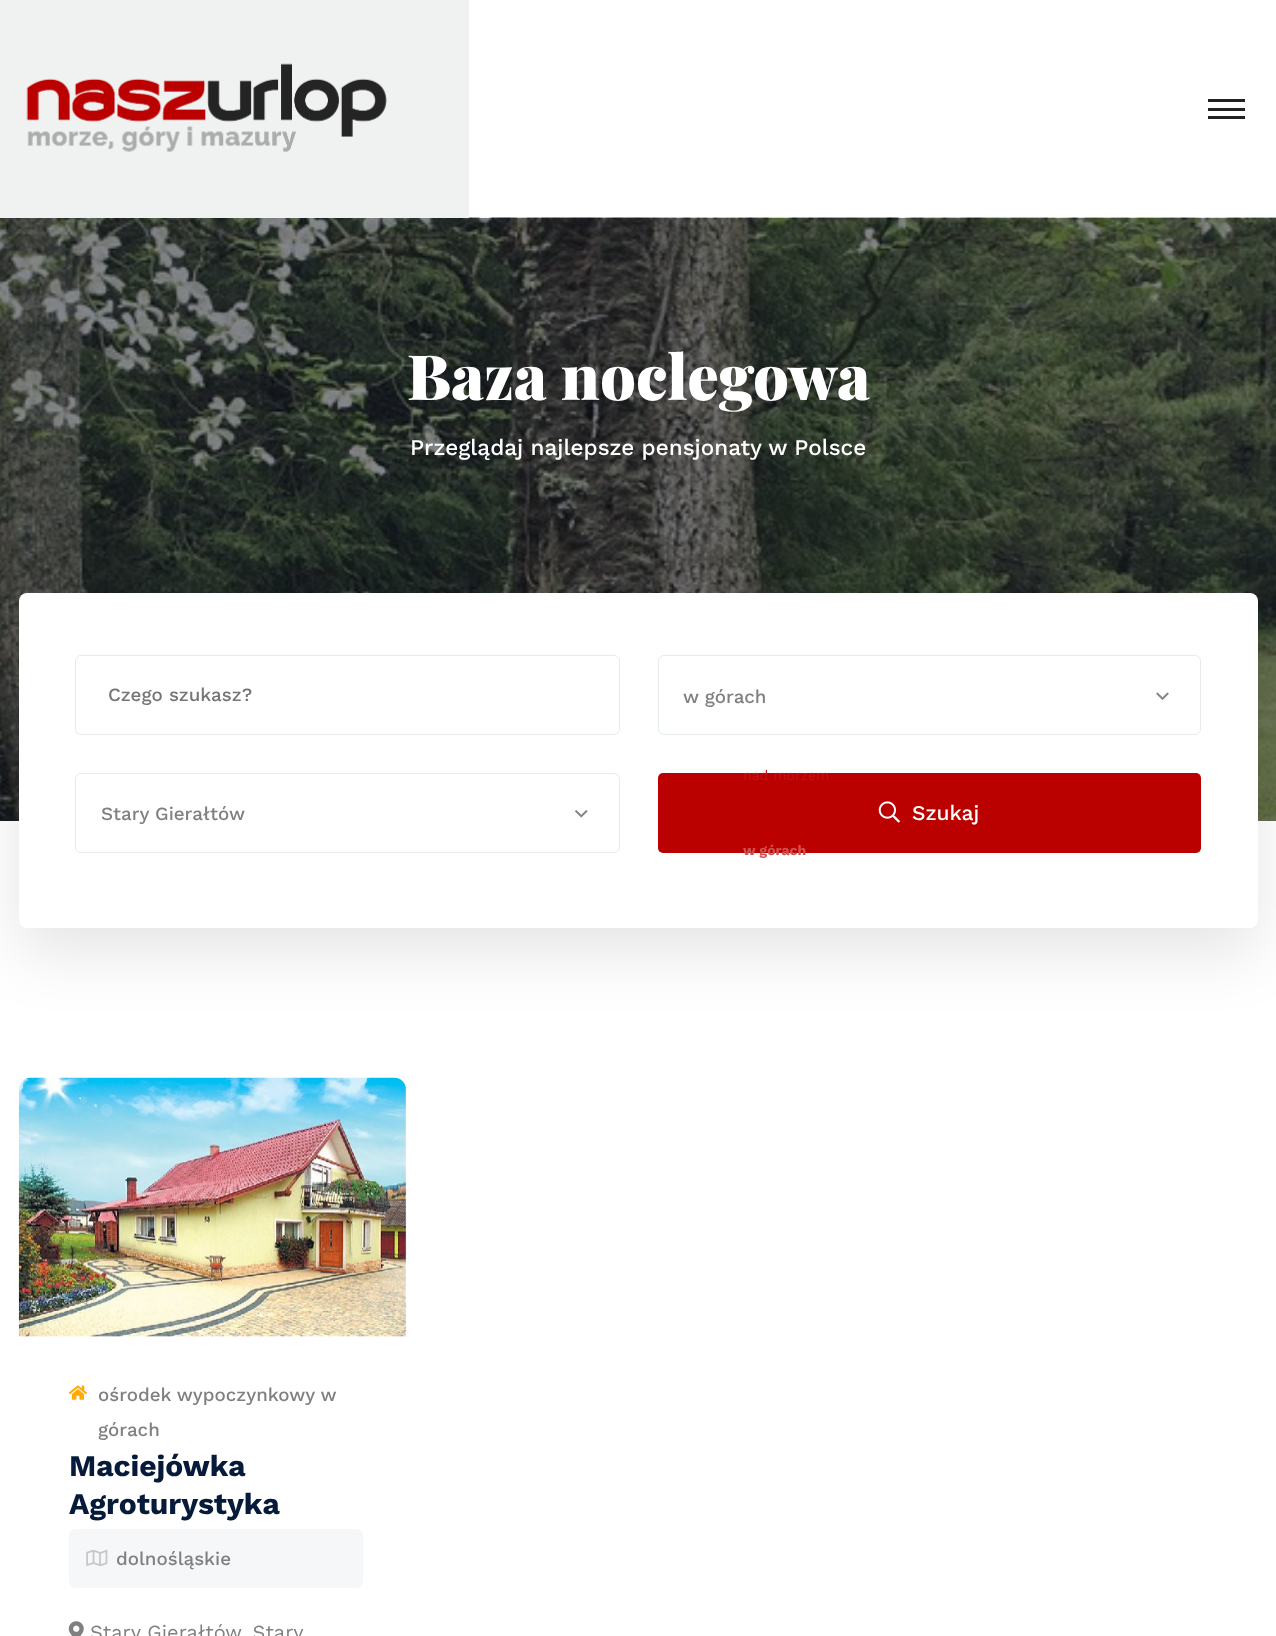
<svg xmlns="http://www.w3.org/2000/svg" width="1276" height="1636">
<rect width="100%" height="100%" fill="#fff"/>
<image x="0" y="217" width="1276" height="604" href="media/2.png"/>
<rect width="469" height="218" fill="#f0f2f2"/>
<image x="26" y="63" width="361" height="89" href="media/1.png"/>
<rect x="1208" y="99" width="37" height="3" fill="#222"/>
<rect x="1208" y="108" width="37" height="3" fill="#222"/>
<rect x="1208" y="116" width="37" height="3" fill="#222"/>
<text x="407" y="400" style="font-family:Playfair Display;font-size:62.5px;font-weight:900;fill:#fff">Baza noclegowa</text>
<text x="410" y="455" style="font-family:Work Sans;font-size:22.5px;font-weight:500;fill:#fff">Przeglądaj najlepsze pensjonaty w Polsce</text>
<rect x="19" y="618" width="1239" height="335" rx="8" fill="#0000001a" filter="blur(31px)"/>
<rect x="19" y="593" width="1239" height="335" rx="8" fill="#fff"/>
<rect x="75.5" y="655.5" width="544" height="79" rx="5.5" fill="none" stroke="#e6ebeb"/>
<text x="108" y="701" style="font-family:Work Sans;font-size:18.75px;font-weight:500;fill:#757575">Czego szukasz?</text>
<rect x="658.5" y="655.5" width="542" height="79" rx="5.5" fill="none" stroke="#e6ebeb"/>
<text x="683" y="703" style="font-family:Work Sans;font-size:18.75px;font-weight:500;fill:#808080">w górach</text>
<image x="1156" y="692" width="13" height="8" href="media/3.png"/>
<rect x="658" y="773" width="543" height="80" rx="5" fill="#b00"/>
<text x="743" y="780" style="font-family:Work Sans;font-size:14px;fill:#c11515">nad morzem</text>
<text x="743" y="855" style="font-family:Work Sans;font-size:14px;font-weight:bold;fill:#d05050">w górach</text>
<image x="878" y="801" width="22" height="22" href="media/4.png"/>
<text x="912" y="820" style="font-family:Work Sans;font-size:21px;font-weight:500;fill:#fff">Szukaj</text>
<rect x="75.5" y="773.5" width="544" height="79" rx="5.5" fill="none" stroke="#e6ebeb"/>
<text x="101" y="820" style="font-family:Work Sans;font-size:18.75px;font-weight:500;fill:#808080">Stary Gierałtów</text>
<image x="575" y="810" width="13" height="8" href="media/5.png"/>
<image x="18" y="1077" width="389" height="260" href="media/6.png"/>
<image x="68" y="1385" width="19" height="15" href="media/7.png"/>
<text x="98" y="1401" style="font-family:Work Sans;font-size:18.75px;font-weight:500;fill:#808080">ośrodek wypoczynkowy w</text>
<text x="98" y="1436" style="font-family:Work Sans;font-size:18.75px;font-weight:500;fill:#808080">górach</text>
<text x="69" y="1476" style="font-family:Work Sans;font-size:30px;font-weight:bold;fill:#061a3a">Maciejówka</text>
<text x="69" y="1514" style="font-family:Work Sans;font-size:30px;font-weight:bold;fill:#061a3a">Agroturystyka</text>
<rect x="69" y="1529" width="294" height="59" rx="6" fill="#f5f7f8"/>
<image x="86" y="1549" width="22" height="18" href="media/8.png"/>
<text x="116" y="1565" style="font-family:Work Sans;font-size:18.75px;font-weight:500;fill:#808080">dolnośląskie</text>
<image x="68" y="1621" width="16" height="15" href="media/9.png"/>
<text x="90" y="1639" style="font-family:Work Sans;font-size:20px;fill:#808080">Stary Gierałtów, Stary</text>
</svg>
